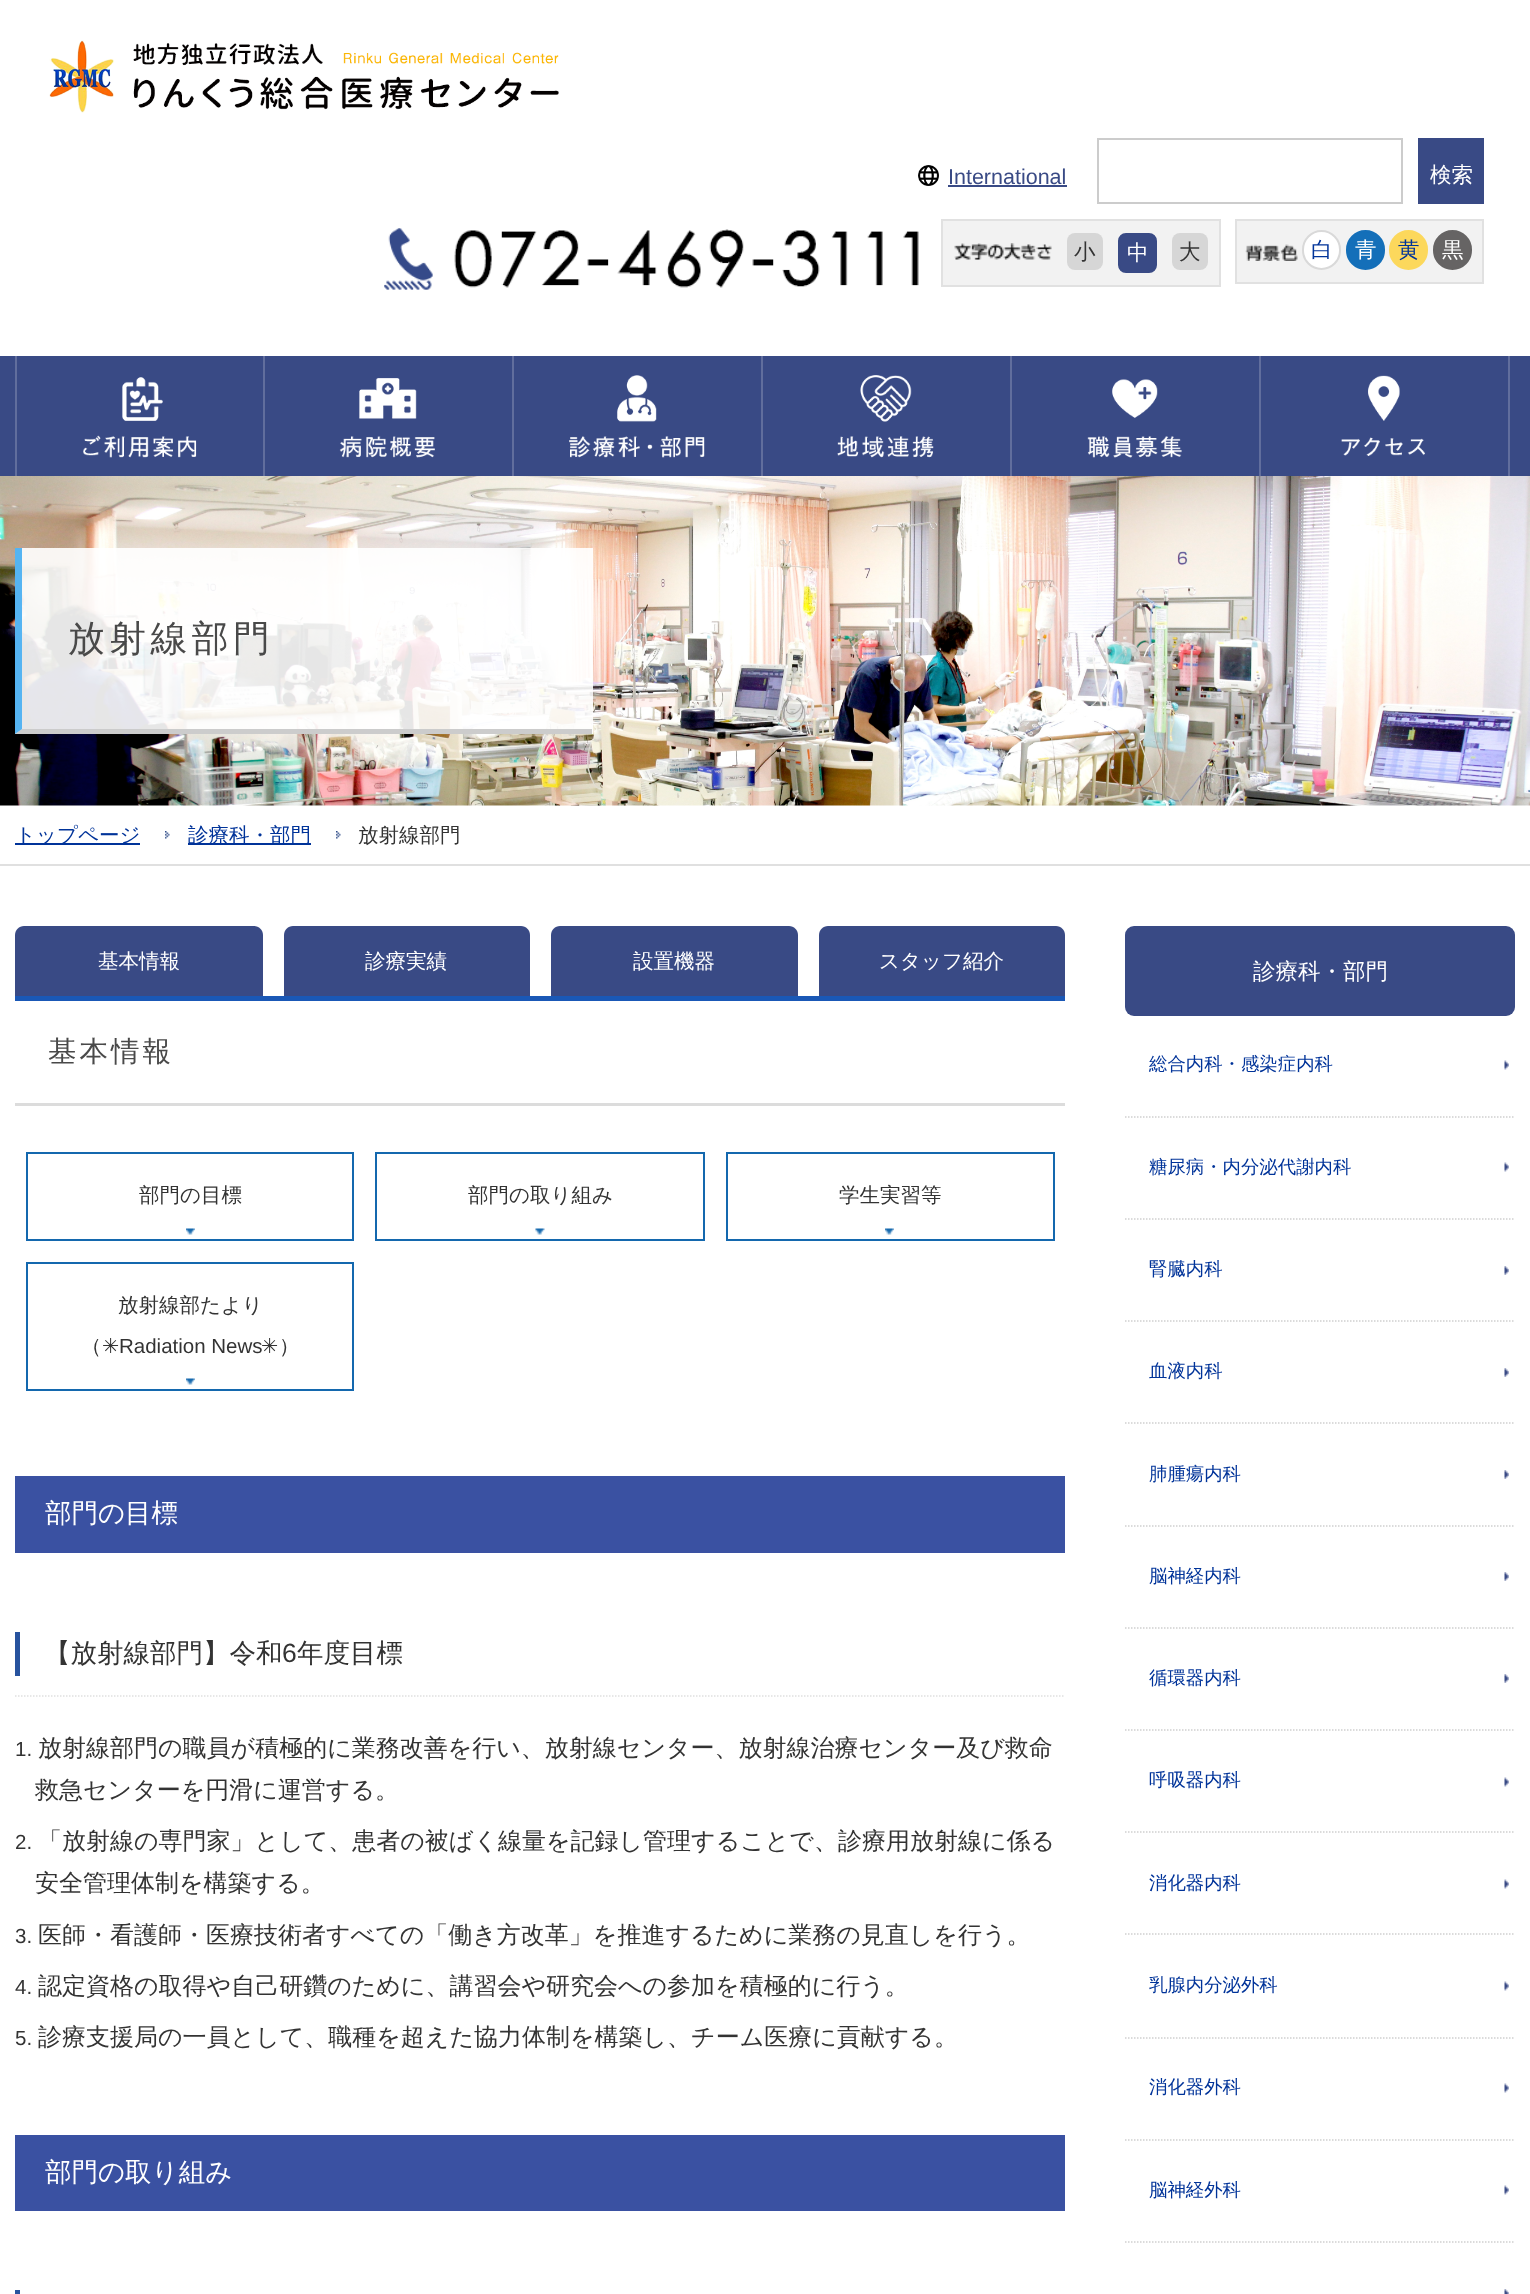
<svg xmlns="http://www.w3.org/2000/svg" width="1530" height="2294">
<rect width="100%" height="100%" fill="#fff"/>
<image x="49" y="40" width="510" height="73" href="media/1.png"/>
<image x="918" y="165" width="21" height="21" href="media/2.png"/>
<text x="948" y="184" style="font-family:Liberation Sans;font-size:21.5px;fill:#394a85">International</text>
<rect x="948" y="185" width="119" height="2" fill="#394a85"/>
<rect x="1098" y="139" width="304" height="64" fill="none" stroke="#ccc" stroke-width="2"/>
<rect x="1418" y="138" width="66" height="66" fill="#394a85"/>
<text x="1430" y="182" style="font-family:WenQuanYi Zen Hei;font-size:21.5px;font-weight:500;fill:#fff">検索</text>
<image x="384" y="228" width="535" height="62" href="media/3.png"/>
<rect x="942" y="220" width="278" height="66" fill="#f2f2f2" stroke="#e1e1e1" stroke-width="2"/>
<image x="954" y="243" width="98" height="17" href="media/4.png"/>
<rect x="1067" y="233" width="36" height="37" rx="8" fill="#d6d6d6"/>
<text x="1074" y="259" style="font-family:WenQuanYi Zen Hei;font-size:21.5px;font-weight:500;fill:#333">小</text>
<rect x="1119" y="234" width="37" height="38" rx="7" fill="#394a85" stroke="#394a85" stroke-width="2"/>
<text x="1127" y="260" style="font-family:WenQuanYi Zen Hei;font-size:21.5px;font-weight:500;fill:#fff">中</text>
<rect x="1172" y="233" width="36" height="37" rx="8" fill="#d6d6d6"/>
<text x="1179" y="259" style="font-family:WenQuanYi Zen Hei;font-size:21.5px;font-weight:500;fill:#333">大</text>
<rect x="1236" y="220" width="247" height="63" fill="#f2f2f2" stroke="#e1e1e1" stroke-width="2"/>
<image x="1245" y="244" width="53" height="17" href="media/5.png"/>
<rect x="1303" y="231" width="37" height="38" rx="18.5" fill="#fff" stroke="#d9d9d9" stroke-width="2"/>
<text x="1311" y="257" style="font-family:WenQuanYi Zen Hei;font-size:21.5px;font-weight:500;fill:#039">白</text>
<rect x="1347" y="231" width="37" height="38" rx="18.5" fill="#146fb9" stroke="#146fb9" stroke-width="2"/>
<text x="1355" y="257" style="font-family:WenQuanYi Zen Hei;font-size:21.5px;font-weight:500;fill:#fff">青</text>
<rect x="1390" y="231" width="37" height="38" rx="18.5" fill="#fcd85c" stroke="#fcd85c" stroke-width="2"/>
<text x="1398" y="257" style="font-family:WenQuanYi Zen Hei;font-size:21.5px;font-weight:500;fill:#039">黄</text>
<rect x="1434" y="231" width="37" height="38" rx="18.5" fill="#666464" stroke="#666464" stroke-width="2"/>
<text x="1442" y="257" style="font-family:WenQuanYi Zen Hei;font-size:21.5px;font-weight:500;fill:#fff">黒</text>
<rect y="356" width="1530" height="120" fill="#394a85"/>
<rect x="263" y="356" width="2" height="120" fill="#616e9d"/>
<rect x="15" y="356" width="2" height="120" fill="#616e9d"/>
<image x="83" y="377" width="114" height="81" href="media/6.png"/>
<rect x="512" y="356" width="2" height="120" fill="#616e9d"/>
<image x="339" y="378" width="96" height="80" href="media/7.png"/>
<rect x="761" y="356" width="2" height="120" fill="#616e9d"/>
<image x="569" y="375" width="136" height="83" href="media/8.png"/>
<rect x="1010" y="356" width="2" height="120" fill="#616e9d"/>
<image x="837" y="375" width="97" height="83" href="media/9.png"/>
<rect x="1259" y="356" width="2" height="120" fill="#616e9d"/>
<image x="1087" y="379" width="95" height="79" href="media/10.png"/>
<rect x="1508" y="356" width="2" height="120" fill="#616e9d"/>
<image x="1341" y="375" width="84" height="81" href="media/11.png"/>
<image x="0" y="476" width="1530" height="330" href="media/12.png"/>
<rect x="15" y="548" width="578" height="186" fill="#ffffffe6"/>
<path d="M592 734h-577l7-5h570z" fill="#ccc"/>
<path d="M15 734v-186h7v181z" fill="#55b4f2"/>
<text x="68" y="651" style="font-family:WenQuanYi Zen Hei;font-size:36.75px;font-weight:500;letter-spacing:4.5px;fill:#494949">放射線部門</text>
<rect y="864" width="1530" height="2" fill="#e0e0e0"/>
<rect x="15" y="843" width="125" height="2" fill="#039"/>
<text x="15" y="842" style="font-family:WenQuanYi Zen Hei;font-size:20.5px;font-weight:500;fill:#039">トップページ</text>
<image x="165" y="831" width="5" height="8" href="media/13.png"/>
<rect x="188" y="843" width="123" height="2" fill="#039"/>
<text x="188" y="842" style="font-family:WenQuanYi Zen Hei;font-size:20.5px;font-weight:500;fill:#039">診療科・部門</text>
<image x="336" y="831" width="5" height="8" href="media/14.png"/>
<text x="358" y="842" style="font-family:WenQuanYi Zen Hei;font-size:20.5px;font-weight:500;fill:#333">放射線部門</text>
<path d="M24 926h230c5 0 9 4 9 9v61h-248v-61c0-5 4-9 9-9z" fill="#394a85"/>
<text x="98" y="968" style="font-family:WenQuanYi Zen Hei;font-size:20.5px;font-weight:500;fill:#fff">基本情報</text>
<path d="M293 926h228c5 0 9 4 9 9v61h-246v-61c0-5 4-9 9-9z" fill="#394a85"/>
<text x="365" y="968" style="font-family:WenQuanYi Zen Hei;font-size:20.5px;font-weight:500;fill:#fff">診療実績</text>
<path d="M560 926h229c5 0 9 4 9 9v61h-247v-61c0-5 4-9 9-9z" fill="#394a85"/>
<text x="633" y="968" style="font-family:WenQuanYi Zen Hei;font-size:20.5px;font-weight:500;fill:#fff">設置機器</text>
<path d="M828 926h228c5 0 9 4 9 9v61h-246v-61c0-5 4-9 9-9z" fill="#394a85"/>
<text x="879" y="968" style="font-family:WenQuanYi Zen Hei;font-size:20.5px;font-weight:500;fill:#fff">スタッフ紹介</text>
<rect x="15" y="996" width="1050" height="5" fill="#1a58b6"/>
<rect x="15" y="1103" width="1050" height="3" fill="#dcdcdc"/>
<text x="48" y="1061" style="font-family:WenQuanYi Zen Hei;font-size:28.5px;font-weight:500;letter-spacing:3px;fill:#494949">基本情報</text>
<image x="186" y="1228" width="9" height="7" href="media/15.png"/>
<rect x="27" y="1153" width="326" height="87" fill="none" stroke="#1468ae" stroke-width="2"/>
<text x="139" y="1202" style="font-family:WenQuanYi Zen Hei;font-size:20.5px;font-weight:500;fill:#333">部門の目標</text>
<image x="535" y="1228" width="10" height="7" href="media/16.png"/>
<rect x="376" y="1153" width="328" height="87" fill="none" stroke="#1468ae" stroke-width="2"/>
<text x="468" y="1202" style="font-family:WenQuanYi Zen Hei;font-size:20.5px;font-weight:500;fill:#333">部門の取り組み</text>
<image x="885" y="1228" width="9" height="7" href="media/15.png"/>
<rect x="727" y="1153" width="327" height="87" fill="none" stroke="#1468ae" stroke-width="2"/>
<text x="839" y="1202" style="font-family:WenQuanYi Zen Hei;font-size:20.5px;font-weight:500;fill:#333">学生実習等</text>
<image x="186" y="1378" width="9" height="7" href="media/15.png"/>
<rect x="27" y="1263" width="326" height="127" fill="none" stroke="#1468ae" stroke-width="2"/>
<text x="118" y="1312" style="font-family:WenQuanYi Zen Hei;font-size:20.5px;font-weight:500;fill:#333">放射線部たより</text>
<text x="81" y="1353" style="font-family:WenQuanYi Zen Hei;font-size:20.5px;font-weight:500;fill:#333">（</text>
<text x="102" y="1353" style="font-family:DejaVu Sans;font-size:20.5px;fill:#333">✳︎</text>
<text x="119" y="1353" style="font-family:Liberation Sans;font-size:20.5px;fill:#333">Radiation News</text>
<text x="261" y="1353" style="font-family:DejaVu Sans;font-size:20.5px;fill:#333">✳︎</text>
<text x="279" y="1353" style="font-family:WenQuanYi Zen Hei;font-size:20.5px;font-weight:500;fill:#333">）</text>
<rect x="15" y="1476" width="1050" height="77" fill="#3a51a2"/>
<text x="45" y="1522" style="font-family:WenQuanYi Zen Hei;font-size:26.5px;font-weight:500;fill:#fff">部門の目標</text>
<path d="M15 1696h1050" fill="none" stroke="#e0e0e0" stroke-width="1.5" stroke-dasharray="1.5 1.5"/>
<rect x="15" y="1632" width="5" height="44" fill="#27539e"/>
<text x="44" y="1662" style="font-family:WenQuanYi Zen Hei;font-size:26.5px;font-weight:500;fill:#333">【放射線部門】令和</text>
<text x="282" y="1662" style="font-family:Liberation Sans;font-size:26.5px;fill:#333">6</text>
<text x="297" y="1662" style="font-family:WenQuanYi Zen Hei;font-size:26.5px;font-weight:500;fill:#333">年度目標</text>
<text x="15" y="1756" style="font-family:Liberation Sans;font-size:20.5px;fill:#333">1.</text>
<text x="38" y="1756" style="font-family:WenQuanYi Zen Hei;font-size:24px;font-weight:500;fill:#333">放射線部門の職員が積極的に業務改善を行い、放射線センター、放射線治療センター及び救命</text>
<text x="35" y="1798" style="font-family:WenQuanYi Zen Hei;font-size:24px;font-weight:500;fill:#333">救急センターを円滑に運営する。</text>
<text x="15" y="1849" style="font-family:Liberation Sans;font-size:20.5px;fill:#333">2.</text>
<text x="38" y="1849" style="font-family:WenQuanYi Zen Hei;font-size:24px;font-weight:500;fill:#333">「放射線の専門家」として、患者の被ばく線量を記録し管理することで、診療用放射線に係る</text>
<text x="35" y="1891" style="font-family:WenQuanYi Zen Hei;font-size:24px;font-weight:500;fill:#333">安全管理体制を構築する。</text>
<text x="15" y="1943" style="font-family:Liberation Sans;font-size:20.5px;fill:#333">3.</text>
<text x="38" y="1943" style="font-family:WenQuanYi Zen Hei;font-size:24px;font-weight:500;fill:#333">医師・看護師・医療技術者すべての「働き方改革」を推進するために業務の見直しを行う。</text>
<text x="15" y="1994" style="font-family:Liberation Sans;font-size:20.5px;fill:#333">4.</text>
<text x="38" y="1994" style="font-family:WenQuanYi Zen Hei;font-size:24px;font-weight:500;fill:#333">認定資格の取得や自己研鑽のために、講習会や研究会への参加を積極的に行う。</text>
<text x="15" y="2045" style="font-family:Liberation Sans;font-size:20.5px;fill:#333">5.</text>
<text x="38" y="2045" style="font-family:WenQuanYi Zen Hei;font-size:24px;font-weight:500;fill:#333">診療支援局の一員として、職種を超えた協力体制を構築し、チーム医療に貢献する。</text>
<rect x="15" y="2135" width="1050" height="76" fill="#3a51a2"/>
<text x="45" y="2181" style="font-family:WenQuanYi Zen Hei;font-size:26.5px;font-weight:500;fill:#fff">部門の取り組み</text>
<rect x="15" y="2290" width="5" height="4" fill="#27539e"/>
<rect x="1125" y="926" width="390" height="90" rx="9" fill="#394a85"/>
<text x="1253" y="979" style="font-family:WenQuanYi Zen Hei;font-size:22.5px;font-weight:500;fill:#fff">診療科・部門</text>
<image x="1504" y="1060" width="5" height="10" href="media/17.png"/>
<path d="M1125 1117h390" fill="none" stroke="#d0d0d0" stroke-width="1.5" stroke-dasharray="1.5 1.5"/>
<text x="1149" y="1070" style="font-family:WenQuanYi Zen Hei;font-size:18.4px;font-weight:500;fill:#039">総合内科・感染症内科</text>
<image x="1504" y="1162" width="5" height="10" href="media/17.png"/>
<path d="M1125 1219h390" fill="none" stroke="#d0d0d0" stroke-width="1.5" stroke-dasharray="1.5 1.5"/>
<text x="1149" y="1173" style="font-family:WenQuanYi Zen Hei;font-size:18.4px;font-weight:500;fill:#039">糖尿病・内分泌代謝内科</text>
<image x="1504" y="1266" width="5" height="9" href="media/18.png"/>
<path d="M1125 1321h390" fill="none" stroke="#d0d0d0" stroke-width="1.5" stroke-dasharray="1.5 1.5"/>
<text x="1149" y="1275" style="font-family:WenQuanYi Zen Hei;font-size:18.4px;font-weight:500;fill:#039">腎臓内科</text>
<image x="1504" y="1368" width="5" height="9" href="media/18.png"/>
<path d="M1125 1423h390" fill="none" stroke="#d0d0d0" stroke-width="1.5" stroke-dasharray="1.5 1.5"/>
<text x="1149" y="1377" style="font-family:WenQuanYi Zen Hei;font-size:18.4px;font-weight:500;fill:#039">血液内科</text>
<image x="1504" y="1470" width="5" height="9" href="media/18.png"/>
<path d="M1125 1526h390" fill="none" stroke="#d0d0d0" stroke-width="1.5" stroke-dasharray="1.5 1.5"/>
<text x="1149" y="1480" style="font-family:WenQuanYi Zen Hei;font-size:18.4px;font-weight:500;fill:#039">肺腫瘍内科</text>
<image x="1504" y="1572" width="5" height="9" href="media/18.png"/>
<path d="M1125 1628h390" fill="none" stroke="#d0d0d0" stroke-width="1.5" stroke-dasharray="1.5 1.5"/>
<text x="1149" y="1582" style="font-family:WenQuanYi Zen Hei;font-size:18.4px;font-weight:500;fill:#039">脳神経内科</text>
<image x="1504" y="1674" width="5" height="9" href="media/18.png"/>
<path d="M1125 1730h390" fill="none" stroke="#d0d0d0" stroke-width="1.5" stroke-dasharray="1.5 1.5"/>
<text x="1149" y="1684" style="font-family:WenQuanYi Zen Hei;font-size:18.4px;font-weight:500;fill:#039">循環器内科</text>
<image x="1504" y="1777" width="5" height="10" href="media/17.png"/>
<path d="M1125 1832h390" fill="none" stroke="#d0d0d0" stroke-width="1.5" stroke-dasharray="1.5 1.5"/>
<text x="1149" y="1786" style="font-family:WenQuanYi Zen Hei;font-size:18.4px;font-weight:500;fill:#039">呼吸器内科</text>
<image x="1504" y="1879" width="5" height="10" href="media/17.png"/>
<path d="M1125 1934h390" fill="none" stroke="#d0d0d0" stroke-width="1.5" stroke-dasharray="1.5 1.5"/>
<text x="1149" y="1889" style="font-family:WenQuanYi Zen Hei;font-size:18.4px;font-weight:500;fill:#039">消化器内科</text>
<image x="1504" y="1981" width="5" height="10" href="media/17.png"/>
<path d="M1125 2038h390" fill="none" stroke="#d0d0d0" stroke-width="1.5" stroke-dasharray="1.5 1.5"/>
<text x="1149" y="1991" style="font-family:WenQuanYi Zen Hei;font-size:18.4px;font-weight:500;fill:#039">乳腺内分泌外科</text>
<image x="1504" y="2083" width="5" height="10" href="media/17.png"/>
<path d="M1125 2140h390" fill="none" stroke="#d0d0d0" stroke-width="1.5" stroke-dasharray="1.5 1.5"/>
<text x="1149" y="2093" style="font-family:WenQuanYi Zen Hei;font-size:18.4px;font-weight:500;fill:#039">消化器外科</text>
<image x="1504" y="2185" width="5" height="10" href="media/17.png"/>
<path d="M1125 2242h390" fill="none" stroke="#d0d0d0" stroke-width="1.5" stroke-dasharray="1.5 1.5"/>
<text x="1149" y="2196" style="font-family:WenQuanYi Zen Hei;font-size:18.4px;font-weight:500;fill:#039">脳神経外科</text>
<image x="1504" y="2289" width="5" height="5" href="media/19.png"/>
</svg>
